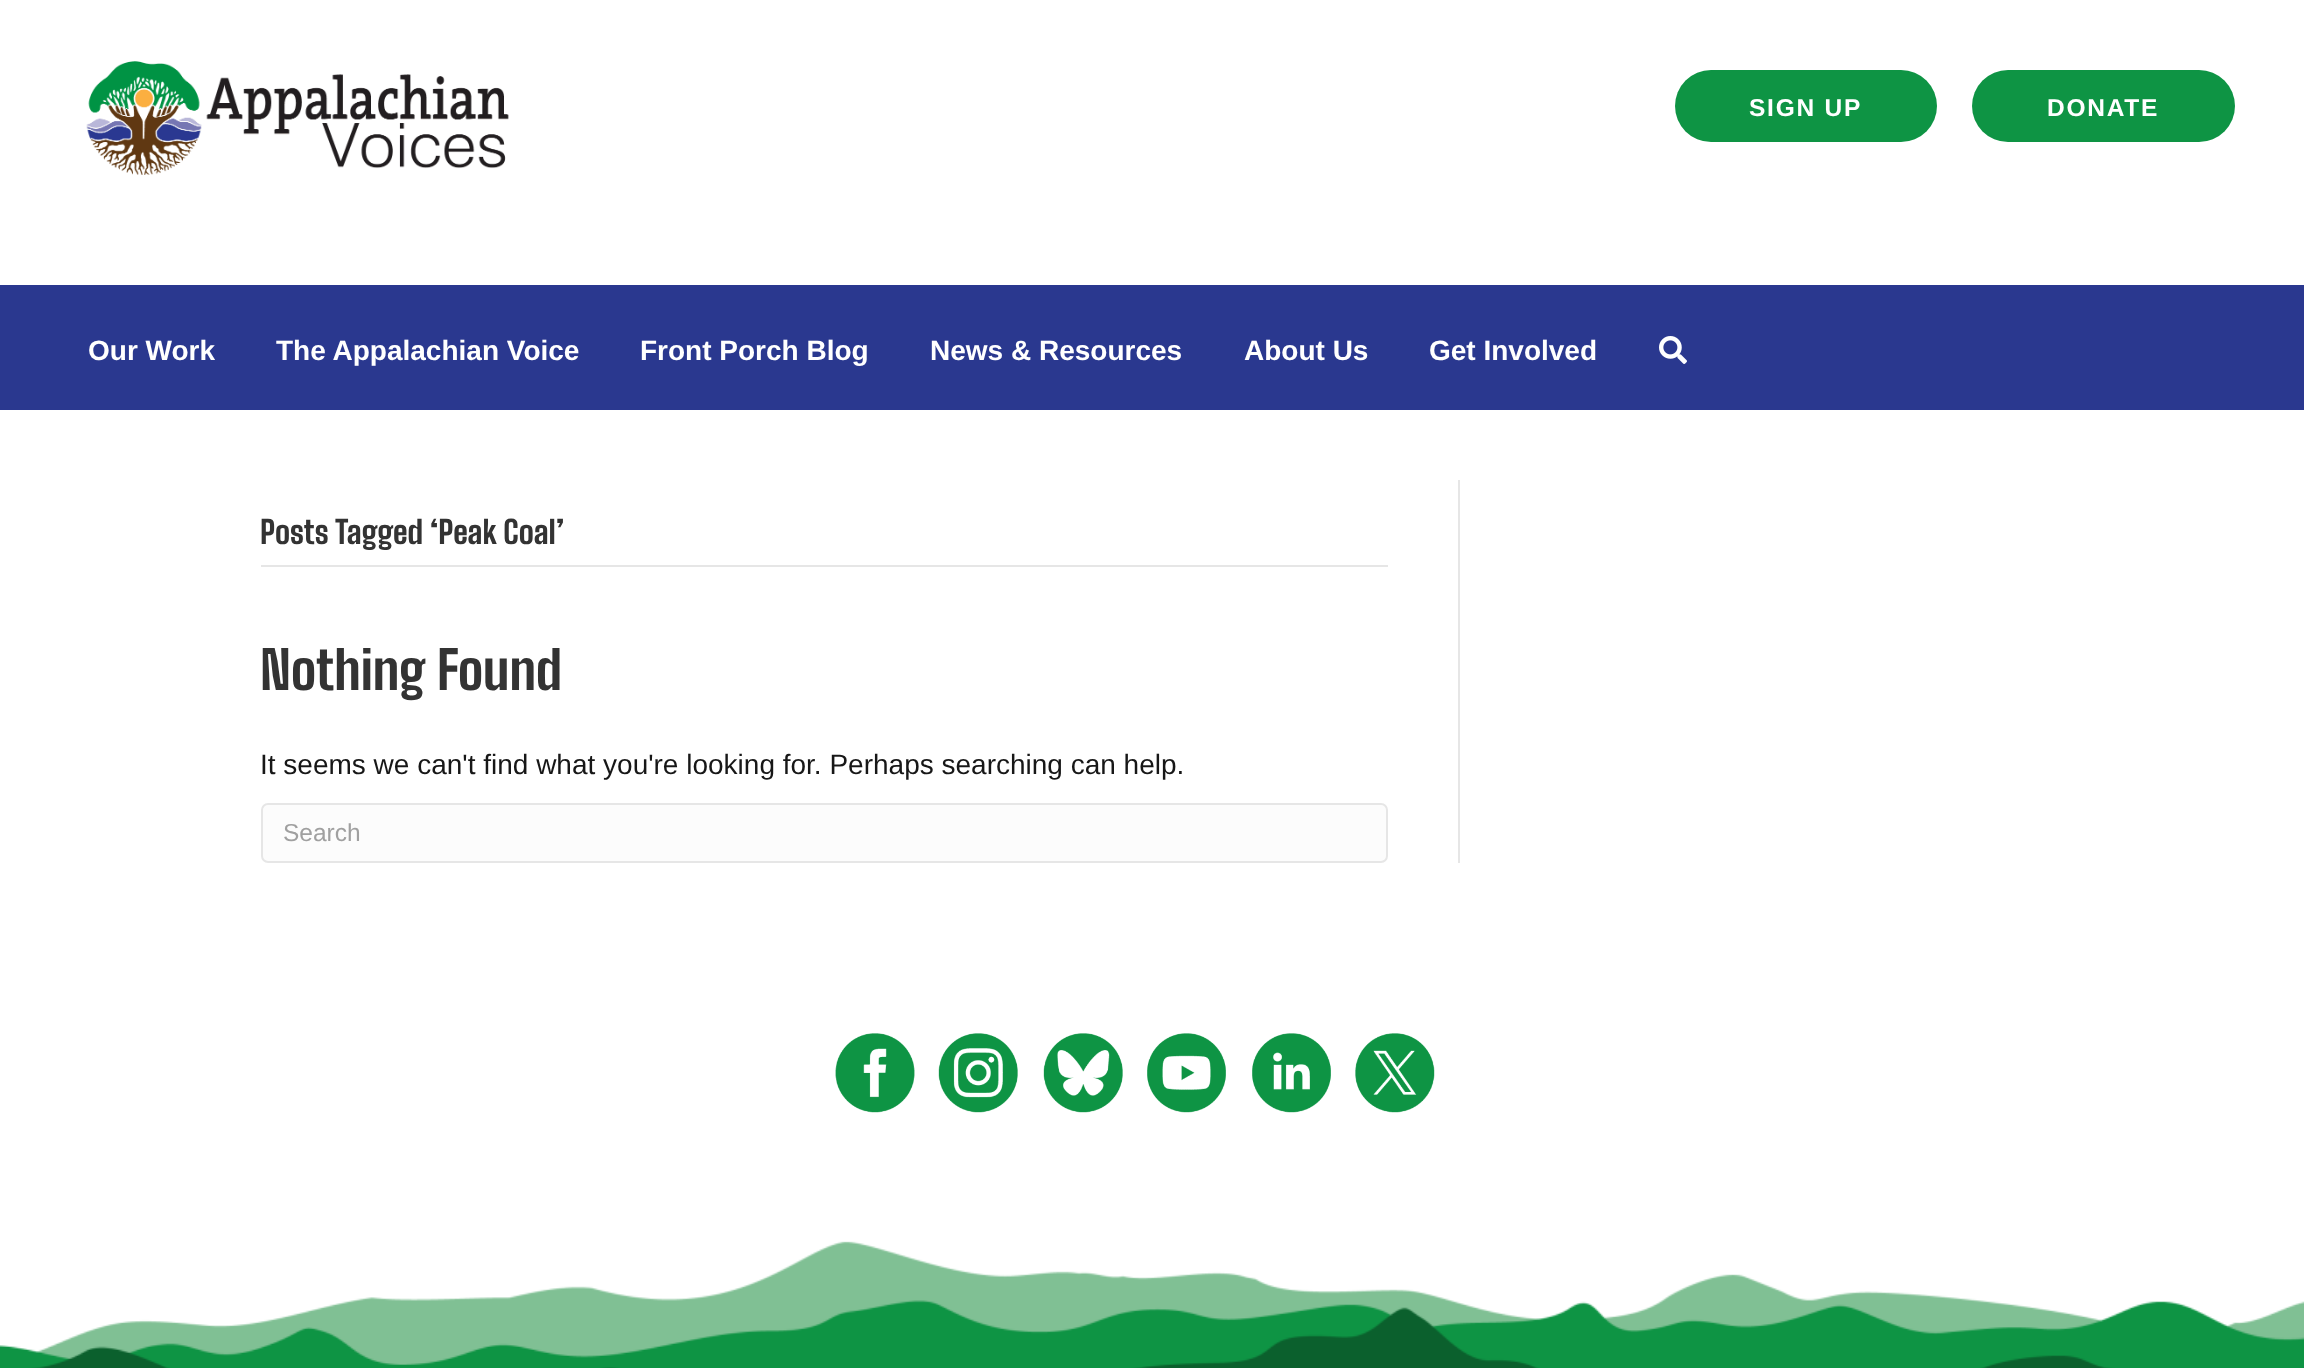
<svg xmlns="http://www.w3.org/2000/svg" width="2304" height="1368">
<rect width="100%" height="100%" fill="#fff"/>
<image x="86" y="61" width="423" height="114" href="media/1.png"/>
<rect x="1675" y="70" width="262" height="72" rx="36" fill="#0e9444"/>
<text x="1749" y="116" style="font-family:Liberation Sans;font-size:24.5px;font-weight:bold;letter-spacing:1.75px;fill:#fff">SIGN UP</text>
<rect x="1972" y="70" width="263" height="72" rx="36" fill="#0e9444"/>
<text x="2047" y="116" style="font-family:Liberation Sans;font-size:24.5px;font-weight:bold;letter-spacing:1.75px;fill:#fff">DONATE</text>
<rect y="285" width="2304" height="125" fill="#2a388f"/>
<text x="88" y="360" style="font-family:Liberation Sans;font-size:28px;font-weight:bold;fill:#fff">Our Work</text>
<text x="276" y="360" style="font-family:Liberation Sans;font-size:28px;font-weight:bold;fill:#fff">The Appalachian Voice</text>
<text x="640" y="360" style="font-family:Liberation Sans;font-size:28px;font-weight:bold;fill:#fff">Front Porch Blog</text>
<text x="930" y="360" style="font-family:Liberation Sans;font-size:28px;font-weight:bold;fill:#fff">News &amp; Resources</text>
<text x="1244" y="360" style="font-family:Liberation Sans;font-size:28px;font-weight:bold;fill:#fff">About Us</text>
<text x="1429" y="360" style="font-family:Liberation Sans;font-size:28px;font-weight:bold;fill:#fff">Get Involved</text>
<image x="1659" y="336" width="28" height="28" href="media/2.png"/>
<rect x="1458" y="480" width="2" height="383" fill="#e6e6e6"/>
<rect x="261" y="565" width="1127" height="2" fill="#e6e6e6"/>
<text x="260" y="544" style="font-family:Big Shoulders Text;font-size:31.5px;font-weight:100;fill:#333">Posts Tagged ‘Peak Coal’</text>
<text x="260" y="690" style="font-family:Big Shoulders Text;font-size:52.5px;font-weight:100;fill:#333">Nothing Found</text>
<text x="260" y="774" style="font-family:Liberation Sans;font-size:28px;fill:#171717">It seems we can't find what you're looking for. Perhaps searching can help.</text>
<rect x="262" y="804" width="1125" height="58" rx="6" fill="#fcfcfc" stroke="#e6e6e6" stroke-width="2"/>
<text x="283" y="841" style="font-family:Liberation Sans;font-size:24.5px;fill:#a0a0a0">Search</text>
<image x="835" y="1033" width="80" height="80" href="media/3.png"/>
<image x="938" y="1033" width="80" height="80" href="media/4.png"/>
<image x="1043" y="1033" width="80" height="80" href="media/5.png"/>
<image x="1147" y="1033" width="79" height="80" href="media/6.png"/>
<image x="1252" y="1033" width="79" height="80" href="media/7.png"/>
<image x="1355" y="1033" width="80" height="80" href="media/8.png"/>
<image x="0" y="1241" width="2304" height="127" href="media/9.png"/>
</svg>
